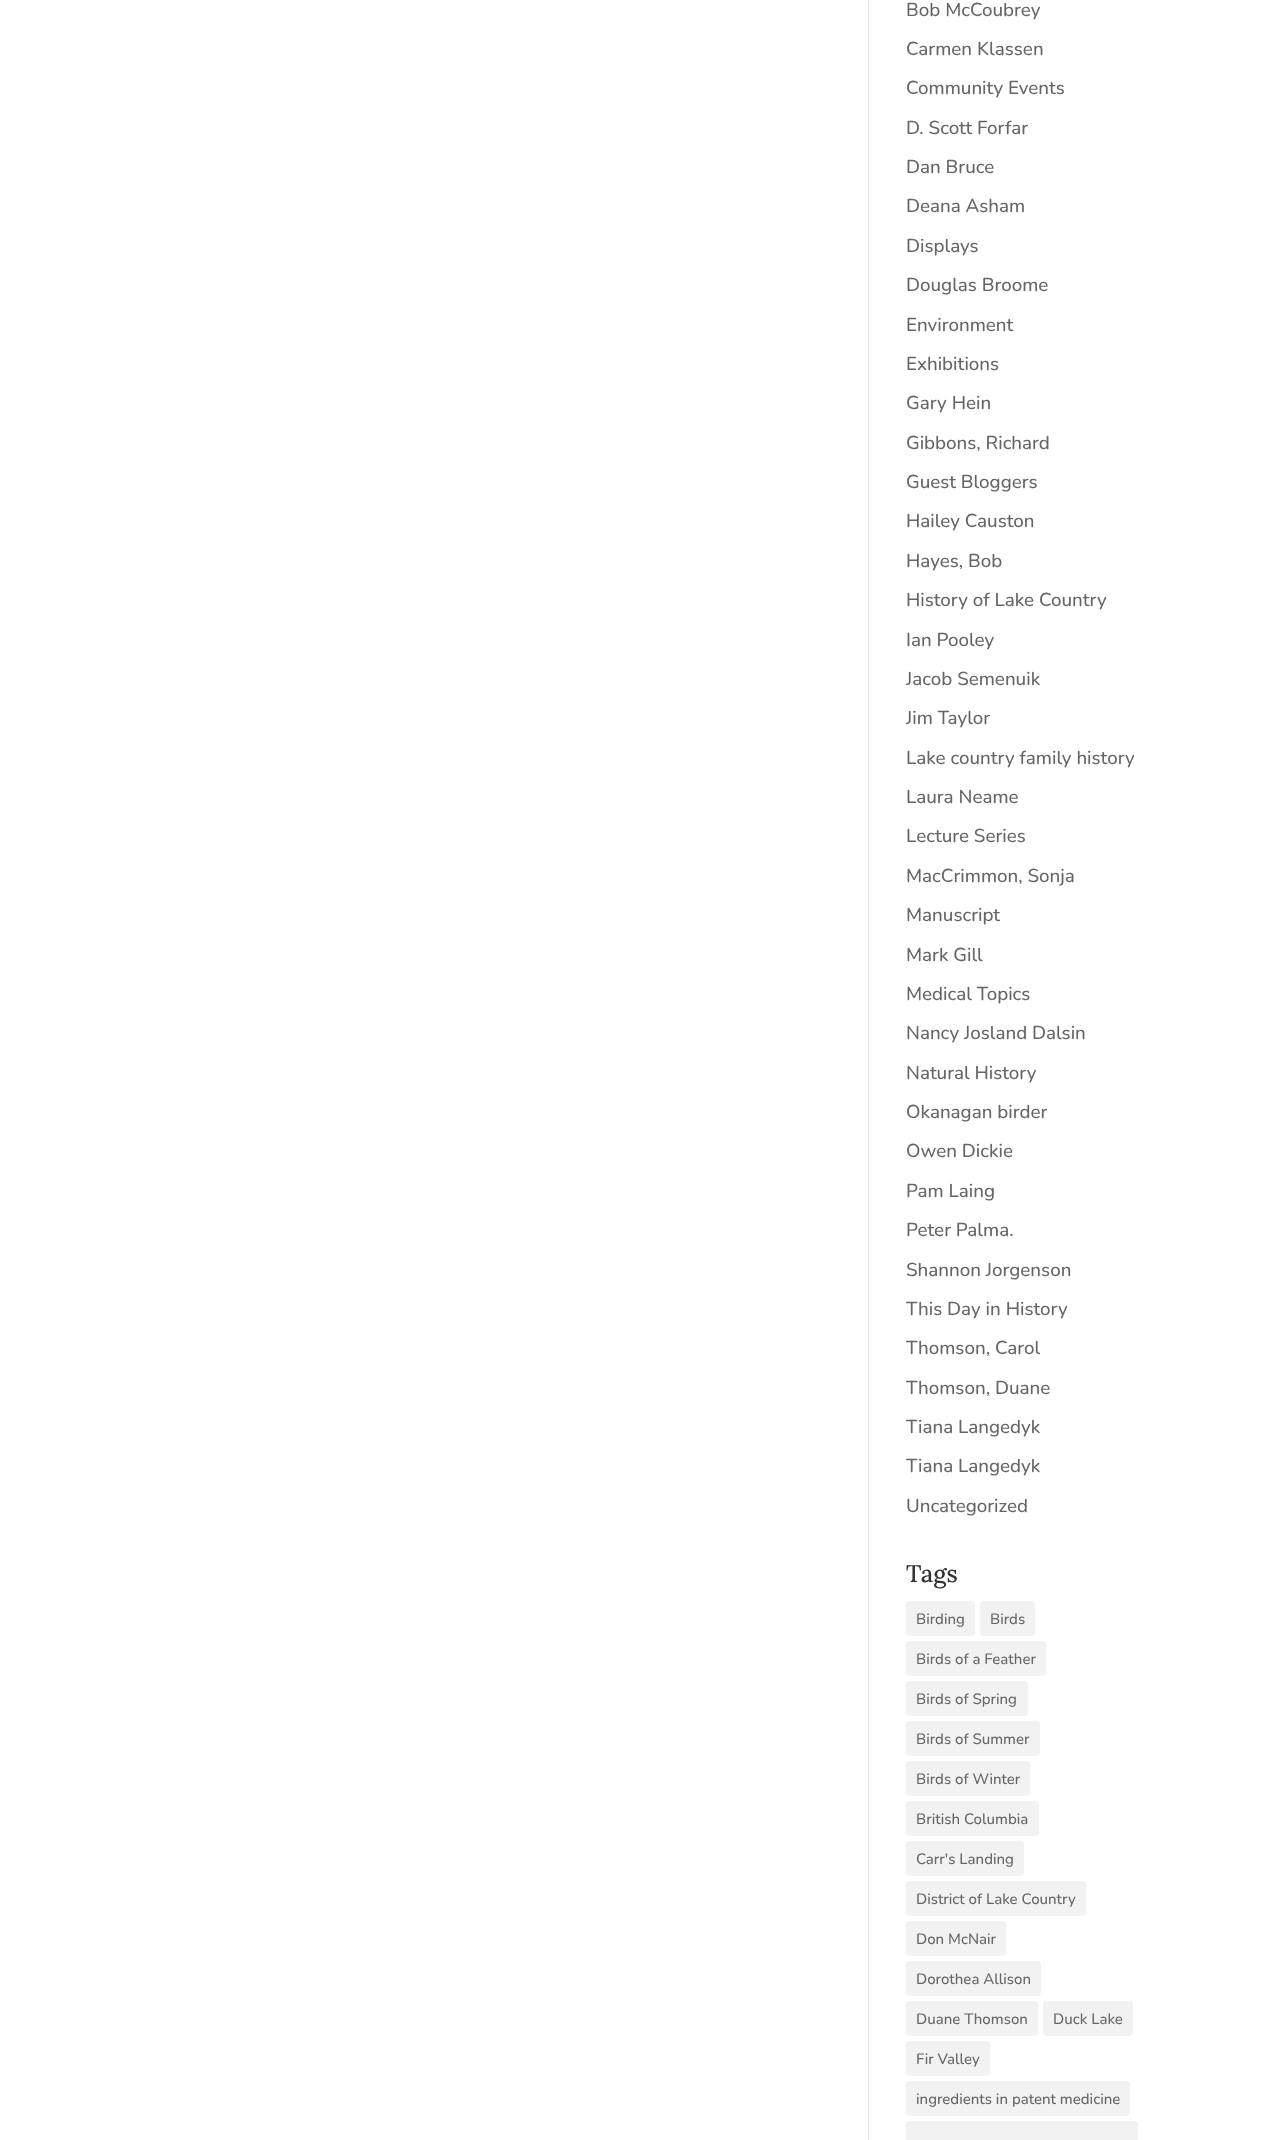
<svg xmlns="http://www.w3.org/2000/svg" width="1269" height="2140">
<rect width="100%" height="100%" fill="#fff"/>
<rect x="868" width="1" height="2140" fill="#e2e2e2"/>
<text x="906" y="16" style="font-family:Nunito;font-size:18.75px;font-weight:500;fill:#666">Bob McCoubrey</text>
<text x="906" y="55" style="font-family:Nunito;font-size:18.75px;font-weight:500;fill:#666">Carmen Klassen</text>
<text x="906" y="94" style="font-family:Nunito;font-size:18.75px;font-weight:500;fill:#666">Community Events</text>
<text x="906" y="134" style="font-family:Nunito;font-size:18.75px;font-weight:500;fill:#666">D. Scott Forfar</text>
<text x="906" y="173" style="font-family:Nunito;font-size:18.75px;font-weight:500;fill:#666">Dan Bruce</text>
<text x="906" y="212" style="font-family:Nunito;font-size:18.75px;font-weight:500;fill:#666">Deana Asham</text>
<text x="906" y="252" style="font-family:Nunito;font-size:18.75px;font-weight:500;fill:#666">Displays</text>
<text x="906" y="291" style="font-family:Nunito;font-size:18.75px;font-weight:500;fill:#666">Douglas Broome</text>
<text x="906" y="331" style="font-family:Nunito;font-size:18.75px;font-weight:500;fill:#666">Environment</text>
<text x="906" y="370" style="font-family:Nunito;font-size:18.75px;font-weight:500;fill:#666">Exhibitions</text>
<text x="906" y="409" style="font-family:Nunito;font-size:18.75px;font-weight:500;fill:#666">Gary Hein</text>
<text x="906" y="449" style="font-family:Nunito;font-size:18.75px;font-weight:500;fill:#666">Gibbons, Richard</text>
<text x="906" y="488" style="font-family:Nunito;font-size:18.75px;font-weight:500;fill:#666">Guest Bloggers</text>
<text x="906" y="527" style="font-family:Nunito;font-size:18.75px;font-weight:500;fill:#666">Hailey Causton</text>
<text x="906" y="567" style="font-family:Nunito;font-size:18.75px;font-weight:500;fill:#666">Hayes, Bob</text>
<text x="906" y="606" style="font-family:Nunito;font-size:18.75px;font-weight:500;fill:#666">History of Lake Country</text>
<text x="906" y="646" style="font-family:Nunito;font-size:18.75px;font-weight:500;fill:#666">Ian Pooley</text>
<text x="906" y="685" style="font-family:Nunito;font-size:18.75px;font-weight:500;fill:#666">Jacob Semenuik</text>
<text x="906" y="724" style="font-family:Nunito;font-size:18.75px;font-weight:500;fill:#666">Jim Taylor</text>
<text x="906" y="764" style="font-family:Nunito;font-size:18.75px;font-weight:500;fill:#666">Lake country family history</text>
<text x="906" y="803" style="font-family:Nunito;font-size:18.75px;font-weight:500;fill:#666">Laura Neame</text>
<text x="906" y="842" style="font-family:Nunito;font-size:18.75px;font-weight:500;fill:#666">Lecture Series</text>
<text x="906" y="882" style="font-family:Nunito;font-size:18.75px;font-weight:500;fill:#666">MacCrimmon, Sonja</text>
<text x="906" y="921" style="font-family:Nunito;font-size:18.75px;font-weight:500;fill:#666">Manuscript</text>
<text x="906" y="961" style="font-family:Nunito;font-size:18.75px;font-weight:500;fill:#666">Mark Gill</text>
<text x="906" y="1000" style="font-family:Nunito;font-size:18.75px;font-weight:500;fill:#666">Medical Topics</text>
<text x="906" y="1039" style="font-family:Nunito;font-size:18.75px;font-weight:500;fill:#666">Nancy Josland Dalsin</text>
<text x="906" y="1079" style="font-family:Nunito;font-size:18.75px;font-weight:500;fill:#666">Natural History</text>
<text x="906" y="1118" style="font-family:Nunito;font-size:18.75px;font-weight:500;fill:#666">Okanagan birder</text>
<text x="906" y="1157" style="font-family:Nunito;font-size:18.75px;font-weight:500;fill:#666">Owen Dickie</text>
<text x="906" y="1197" style="font-family:Nunito;font-size:18.75px;font-weight:500;fill:#666">Pam Laing</text>
<text x="906" y="1236" style="font-family:Nunito;font-size:18.75px;font-weight:500;fill:#666">Peter Palma.</text>
<text x="906" y="1276" style="font-family:Nunito;font-size:18.75px;font-weight:500;fill:#666">Shannon Jorgenson</text>
<text x="906" y="1315" style="font-family:Nunito;font-size:18.75px;font-weight:500;fill:#666">This Day in History</text>
<text x="906" y="1354" style="font-family:Nunito;font-size:18.75px;font-weight:500;fill:#666">Thomson, Carol</text>
<text x="906" y="1394" style="font-family:Nunito;font-size:18.75px;font-weight:500;fill:#666">Thomson, Duane</text>
<text x="906" y="1433" style="font-family:Nunito;font-size:18.75px;font-weight:500;fill:#666">Tiana Langedyk</text>
<text x="906" y="1472" style="font-family:Nunito;font-size:18.75px;font-weight:500;fill:#666">Tiana Langedyk</text>
<text x="906" y="1512" style="font-family:Nunito;font-size:18.75px;font-weight:500;fill:#666">Uncategorized</text>
<text x="906" y="1582" style="font-family:Lora;font-size:24px;font-weight:500;fill:#333">Tags</text>
<rect x="906" y="1601" width="69" height="35" rx="4" fill="#f2f2f2"/>
<text x="916" y="1624" style="font-family:Nunito;font-size:15px;font-weight:500;fill:#666">Birding</text>
<rect x="980" y="1601" width="55" height="35" rx="4" fill="#f2f2f2"/>
<text x="990" y="1624" style="font-family:Nunito;font-size:15px;font-weight:500;fill:#666">Birds</text>
<rect x="906" y="1641" width="140" height="35" rx="4" fill="#f2f2f2"/>
<text x="916" y="1664" style="font-family:Nunito;font-size:15px;font-weight:500;fill:#666">Birds of a Feather</text>
<rect x="906" y="1681" width="122" height="35" rx="4" fill="#f2f2f2"/>
<text x="916" y="1704" style="font-family:Nunito;font-size:15px;font-weight:500;fill:#666">Birds of Spring</text>
<rect x="906" y="1721" width="134" height="35" rx="4" fill="#f2f2f2"/>
<text x="916" y="1744" style="font-family:Nunito;font-size:15px;font-weight:500;fill:#666">Birds of Summer</text>
<rect x="906" y="1761" width="124" height="35" rx="4" fill="#f2f2f2"/>
<text x="916" y="1784" style="font-family:Nunito;font-size:15px;font-weight:500;fill:#666">Birds of Winter</text>
<rect x="906" y="1801" width="133" height="35" rx="4" fill="#f2f2f2"/>
<text x="916" y="1824" style="font-family:Nunito;font-size:15px;font-weight:500;fill:#666">British Columbia</text>
<rect x="906" y="1841" width="118" height="35" rx="4" fill="#f2f2f2"/>
<text x="916" y="1864" style="font-family:Nunito;font-size:15px;font-weight:500;fill:#666">Carr's Landing</text>
<rect x="906" y="1881" width="180" height="35" rx="4" fill="#f2f2f2"/>
<text x="916" y="1904" style="font-family:Nunito;font-size:15px;font-weight:500;fill:#666">District of Lake Country</text>
<rect x="906" y="1921" width="100" height="35" rx="4" fill="#f2f2f2"/>
<text x="916" y="1944" style="font-family:Nunito;font-size:15px;font-weight:500;fill:#666">Don McNair</text>
<rect x="906" y="1961" width="135" height="35" rx="4" fill="#f2f2f2"/>
<text x="916" y="1984" style="font-family:Nunito;font-size:15px;font-weight:500;fill:#666">Dorothea Allison</text>
<rect x="906" y="2001" width="132" height="35" rx="4" fill="#f2f2f2"/>
<text x="916" y="2024" style="font-family:Nunito;font-size:15px;font-weight:500;fill:#666">Duane Thomson</text>
<rect x="1043" y="2001" width="90" height="35" rx="4" fill="#f2f2f2"/>
<text x="1053" y="2024" style="font-family:Nunito;font-size:15px;font-weight:500;fill:#666">Duck Lake</text>
<rect x="906" y="2041" width="84" height="35" rx="4" fill="#f2f2f2"/>
<text x="916" y="2064" style="font-family:Nunito;font-size:15px;font-weight:500;fill:#666">Fir Valley</text>
<rect x="906" y="2081" width="224" height="35" rx="4" fill="#f2f2f2"/>
<text x="916" y="2104" style="font-family:Nunito;font-size:15px;font-weight:500;fill:#666">ingredients in patent medicine</text>
<rect x="906" y="2121" width="232" height="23" rx="4" fill="#f2f2f2"/>
</svg>
